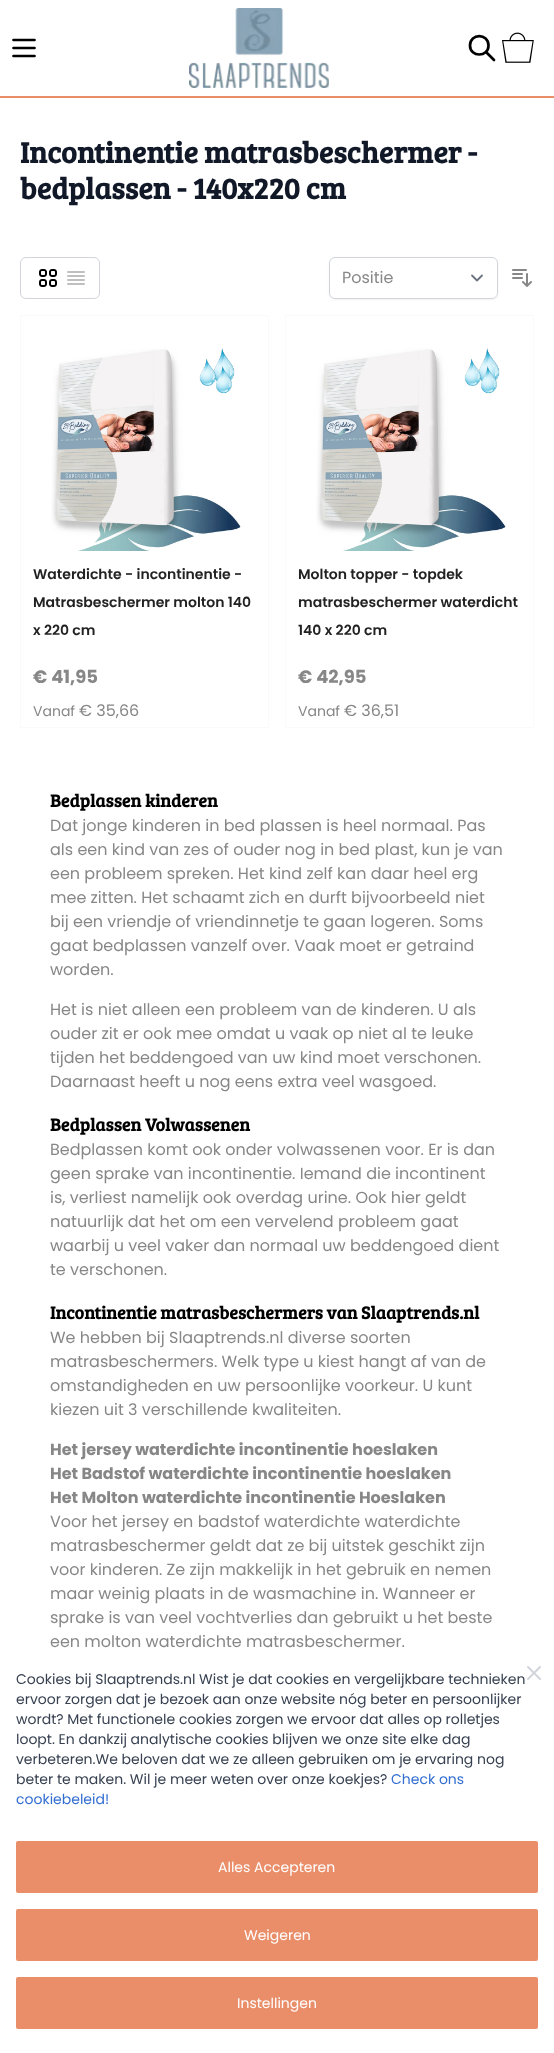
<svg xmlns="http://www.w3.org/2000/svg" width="554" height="2053">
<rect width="100%" height="100%" fill="#fff"/>
<rect y="96" width="554" height="2" fill="#ea8e6a"/>
<path d="M13.5 40h21m-21 8h21m-21 8h21" fill="none" stroke="#000" stroke-width="2.7" stroke-linecap="round" stroke-linejoin="round"/>
<image x="189" y="8" width="140" height="80" href="media/1.png"/>
<path d="M494 60l-8-8m2.5-6.5c0 12-18.5 12-18.5 0c0-12.5 18.5-12.5 18.5 0z" fill="none" stroke="#000" stroke-width="2.7" stroke-linecap="round" stroke-linejoin="round"/>
<image x="502" y="32" width="32" height="31" href="media/2.png"/>
<text x="20" y="163" style="font-family:Bree Serif;font-size:30px;font-weight:bold;fill:#111827">Incontinentie matrasbeschermer -</text>
<text x="20" y="199" style="font-family:Bree Serif;font-size:30px;font-weight:bold;fill:#111827">bedplassen - 140x220 cm</text>
<rect x="20.5" y="257.5" width="79" height="41" rx="5.5" fill="none" stroke="#d1d5db"/>
<image x="39" y="269" width="18" height="18" href="media/3.png"/>
<path d="M68 272h16m-16 4h16m-16 4h16m-16 4h16" fill="none" stroke="#bfbfbf" stroke-width="2" stroke-linecap="round" stroke-linejoin="round"/>
<rect x="329" y="258" width="169" height="42" rx="6" fill="#0000000d" filter="blur(1px)"/>
<rect x="329" y="257" width="169" height="42" rx="6" fill="#fff"/>
<path d="M472 275.5l5 5l5-5" fill="none" stroke="#6b7280" stroke-width="1.8" stroke-linecap="round" stroke-linejoin="round"/>
<rect x="329.5" y="257.5" width="168" height="41" rx="5.5" fill="none" stroke="#d1d5db"/>
<text x="342" y="283" style="font-family:Poppins;font-size:16px;fill:#878787">Positie</text>
<image x="512" y="269" width="20" height="18" href="media/4.png"/>
<rect x="20.5" y="315.5" width="248" height="412" fill="none" stroke="#fafafa"/>
<image x="51" y="348" width="190" height="203" href="media/5.png"/>
<text x="33" y="579" style="font-family:Poppins;font-size:14px;font-weight:600;fill:#222">Waterdichte - incontinentie -</text>
<text x="33" y="607" style="font-family:Poppins;font-size:14px;font-weight:600;fill:#222">Matrasbeschermer molton 140</text>
<text x="33" y="635" style="font-family:Poppins;font-size:14px;font-weight:600;fill:#222">x 220 cm</text>
<text x="33" y="683" style="font-family:Poppins;font-size:18px;font-weight:bold;fill:#878787">€ 41,95</text>
<text x="33" y="716" style="font-family:Poppins;font-size:14px;fill:#878787">Vanaf</text>
<text x="79" y="716" style="font-family:Poppins;font-size:16px;fill:#878787">€ 35,66</text>
<rect x="285.5" y="315.5" width="248" height="412" fill="none" stroke="#fafafa"/>
<image x="316" y="348" width="190" height="203" href="media/5.png"/>
<text x="298" y="579" style="font-family:Poppins;font-size:14px;font-weight:600;fill:#222">Molton topper - topdek</text>
<text x="298" y="607" style="font-family:Poppins;font-size:14px;font-weight:600;fill:#222">matrasbeschermer waterdicht</text>
<text x="298" y="635" style="font-family:Poppins;font-size:14px;font-weight:600;fill:#222">140 x 220 cm</text>
<text x="298" y="683" style="font-family:Poppins;font-size:18px;font-weight:bold;fill:#878787">€ 42,95</text>
<text x="298" y="716" style="font-family:Poppins;font-size:14px;fill:#878787">Vanaf</text>
<text x="344" y="716" style="font-family:Poppins;font-size:16px;fill:#878787">€ 36,51</text>
<text x="50" y="807" style="font-family:Bree Serif;font-size:18px;font-weight:bold;fill:#000">Bedplassen kinderen</text>
<text x="50" y="831" style="font-family:Poppins;font-size:16px;fill:#878787">Dat jonge kinderen in bed plassen is heel normaal. Pas</text>
<text x="50" y="855" style="font-family:Poppins;font-size:16px;fill:#878787">als een kind van zes of ouder nog in bed plast, kun je van</text>
<text x="50" y="879" style="font-family:Poppins;font-size:16px;fill:#878787">een probleem spreken. Het kind zelf kan daar heel erg</text>
<text x="50" y="903" style="font-family:Poppins;font-size:16px;fill:#878787">mee zitten. Het schaamt zich en durft bijvoorbeeld niet</text>
<text x="50" y="927" style="font-family:Poppins;font-size:16px;fill:#878787">bij een vriendje of vriendinnetje te gaan logeren. Soms</text>
<text x="50" y="951" style="font-family:Poppins;font-size:16px;fill:#878787">gaat bedplassen vanzelf over. Vaak moet er getraind</text>
<text x="50" y="975" style="font-family:Poppins;font-size:16px;fill:#878787">worden.</text>
<text x="50" y="1015" style="font-family:Poppins;font-size:16px;fill:#878787">Het is niet alleen een probleem van de kinderen. U als</text>
<text x="50" y="1039" style="font-family:Poppins;font-size:16px;fill:#878787">ouder zit er ook mee omdat u vaak op niet al te leuke</text>
<text x="50" y="1063" style="font-family:Poppins;font-size:16px;fill:#878787">tijden het beddengoed van uw kind moet verschonen.</text>
<text x="50" y="1087" style="font-family:Poppins;font-size:16px;fill:#878787">Daarnaast heeft u nog eens extra veel wasgoed.</text>
<text x="50" y="1131" style="font-family:Bree Serif;font-size:18px;font-weight:bold;fill:#000">Bedplassen Volwassenen</text>
<text x="50" y="1155" style="font-family:Poppins;font-size:16px;fill:#878787">Bedplassen komt ook onder volwassenen voor. Er is dan</text>
<text x="50" y="1179" style="font-family:Poppins;font-size:16px;fill:#878787">geen sprake van incontinentie. Iemand die incontinent</text>
<text x="50" y="1203" style="font-family:Poppins;font-size:16px;fill:#878787">is, verliest namelijk ook overdag urine. Ook hier geldt</text>
<text x="50" y="1227" style="font-family:Poppins;font-size:16px;fill:#878787">natuurlijk dat het om een vervelend probleem gaat</text>
<text x="50" y="1251" style="font-family:Poppins;font-size:16px;fill:#878787">waarbij u veel vaker dan normaal uw beddengoed dient</text>
<text x="50" y="1275" style="font-family:Poppins;font-size:16px;fill:#878787">te verschonen.</text>
<text x="50" y="1319" style="font-family:Bree Serif;font-size:18px;font-weight:bold;fill:#000">Incontinentie matrasbeschermers van Slaaptrends.nl</text>
<text x="50" y="1343" style="font-family:Poppins;font-size:16px;fill:#878787">We hebben bij Slaaptrends.nl diverse soorten</text>
<text x="50" y="1367" style="font-family:Poppins;font-size:16px;fill:#878787">matrasbeschermers. Welk type u kiest hangt af van de</text>
<text x="50" y="1391" style="font-family:Poppins;font-size:16px;fill:#878787">omstandigheden en uw persoonlijke voorkeur. U kunt</text>
<text x="50" y="1415" style="font-family:Poppins;font-size:16px;fill:#878787">kiezen uit 3 verschillende kwaliteiten.</text>
<text x="50" y="1455" style="font-family:Poppins;font-size:16px;font-weight:bold;fill:#878787">Het jersey waterdichte incontinentie hoeslaken</text>
<text x="50" y="1479" style="font-family:Poppins;font-size:16px;font-weight:bold;fill:#878787">Het Badstof waterdichte incontinentie hoeslaken</text>
<text x="50" y="1503" style="font-family:Poppins;font-size:16px;font-weight:bold;fill:#878787">Het Molton waterdichte incontinentie Hoeslaken</text>
<text x="50" y="1527" style="font-family:Poppins;font-size:16px;fill:#878787">Voor het jersey en badstof waterdichte waterdichte</text>
<text x="50" y="1551" style="font-family:Poppins;font-size:16px;fill:#878787">matrasbeschermer geldt dat ze bij uitstek geschikt zijn</text>
<text x="50" y="1575" style="font-family:Poppins;font-size:16px;fill:#878787">voor kinderen. Ze zijn makkelijk in het gebruik en nemen</text>
<text x="50" y="1599" style="font-family:Poppins;font-size:16px;fill:#878787">maar weinig plaats in de wasmachine in. Wanneer er</text>
<text x="50" y="1623" style="font-family:Poppins;font-size:16px;fill:#878787">sprake is van veel vochtverlies dan gebruikt u het beste</text>
<text x="50" y="1647" style="font-family:Poppins;font-size:16px;fill:#878787">een molton waterdichte matrasbeschermer.</text>
<text x="16" y="1684" style="font-family:Poppins;font-size:14px;fill:#374151">Cookies bij Slaaptrends.nl Wist je dat cookies en vergelijkbare technieken</text>
<text x="16" y="1704" style="font-family:Poppins;font-size:14px;fill:#374151">ervoor zorgen dat je bezoek aan onze website nóg beter en persoonlijker</text>
<text x="16" y="1724" style="font-family:Poppins;font-size:14px;fill:#374151">wordt? Met functionele cookies zorgen we ervoor dat alles op rolletjes</text>
<text x="16" y="1744" style="font-family:Poppins;font-size:14px;fill:#374151">loopt. En dankzij analytische cookies blijven we onze site elke dag</text>
<text x="16" y="1764" style="font-family:Poppins;font-size:14px;fill:#374151">verbeteren.We beloven dat we ze alleen gebruiken om je ervaring nog</text>
<text x="16" y="1784" style="font-family:Poppins;font-size:14px;fill:#374151">beter te maken. Wil je meer weten over onze koekjes?</text>
<text x="391" y="1784" style="font-family:Poppins;font-size:14px;fill:#326ed1">Check ons</text>
<text x="16" y="1804" style="font-family:Poppins;font-size:14px;fill:#326ed1">cookiebeleid!</text>
<rect x="16" y="1841" width="522" height="52" rx="2" fill="#ea8e6a"/>
<text x="218" y="1872" style="font-family:Poppins;font-size:14px;fill:#fff">Alles Accepteren</text>
<rect x="16" y="1909" width="522" height="52" rx="2" fill="#ea8e6a"/>
<text x="244" y="1940" style="font-family:Poppins;font-size:14px;fill:#fff">Weigeren</text>
<rect x="16" y="1977" width="522" height="52" rx="2" fill="#ea8e6a"/>
<text x="237" y="2008" style="font-family:Poppins;font-size:14px;fill:#fff">Instellingen</text>
<path d="M528 1679l12-12m-12 0l12 12" fill="none" stroke="#d1d5db" stroke-width="2" stroke-linecap="round" stroke-linejoin="round"/>
</svg>
